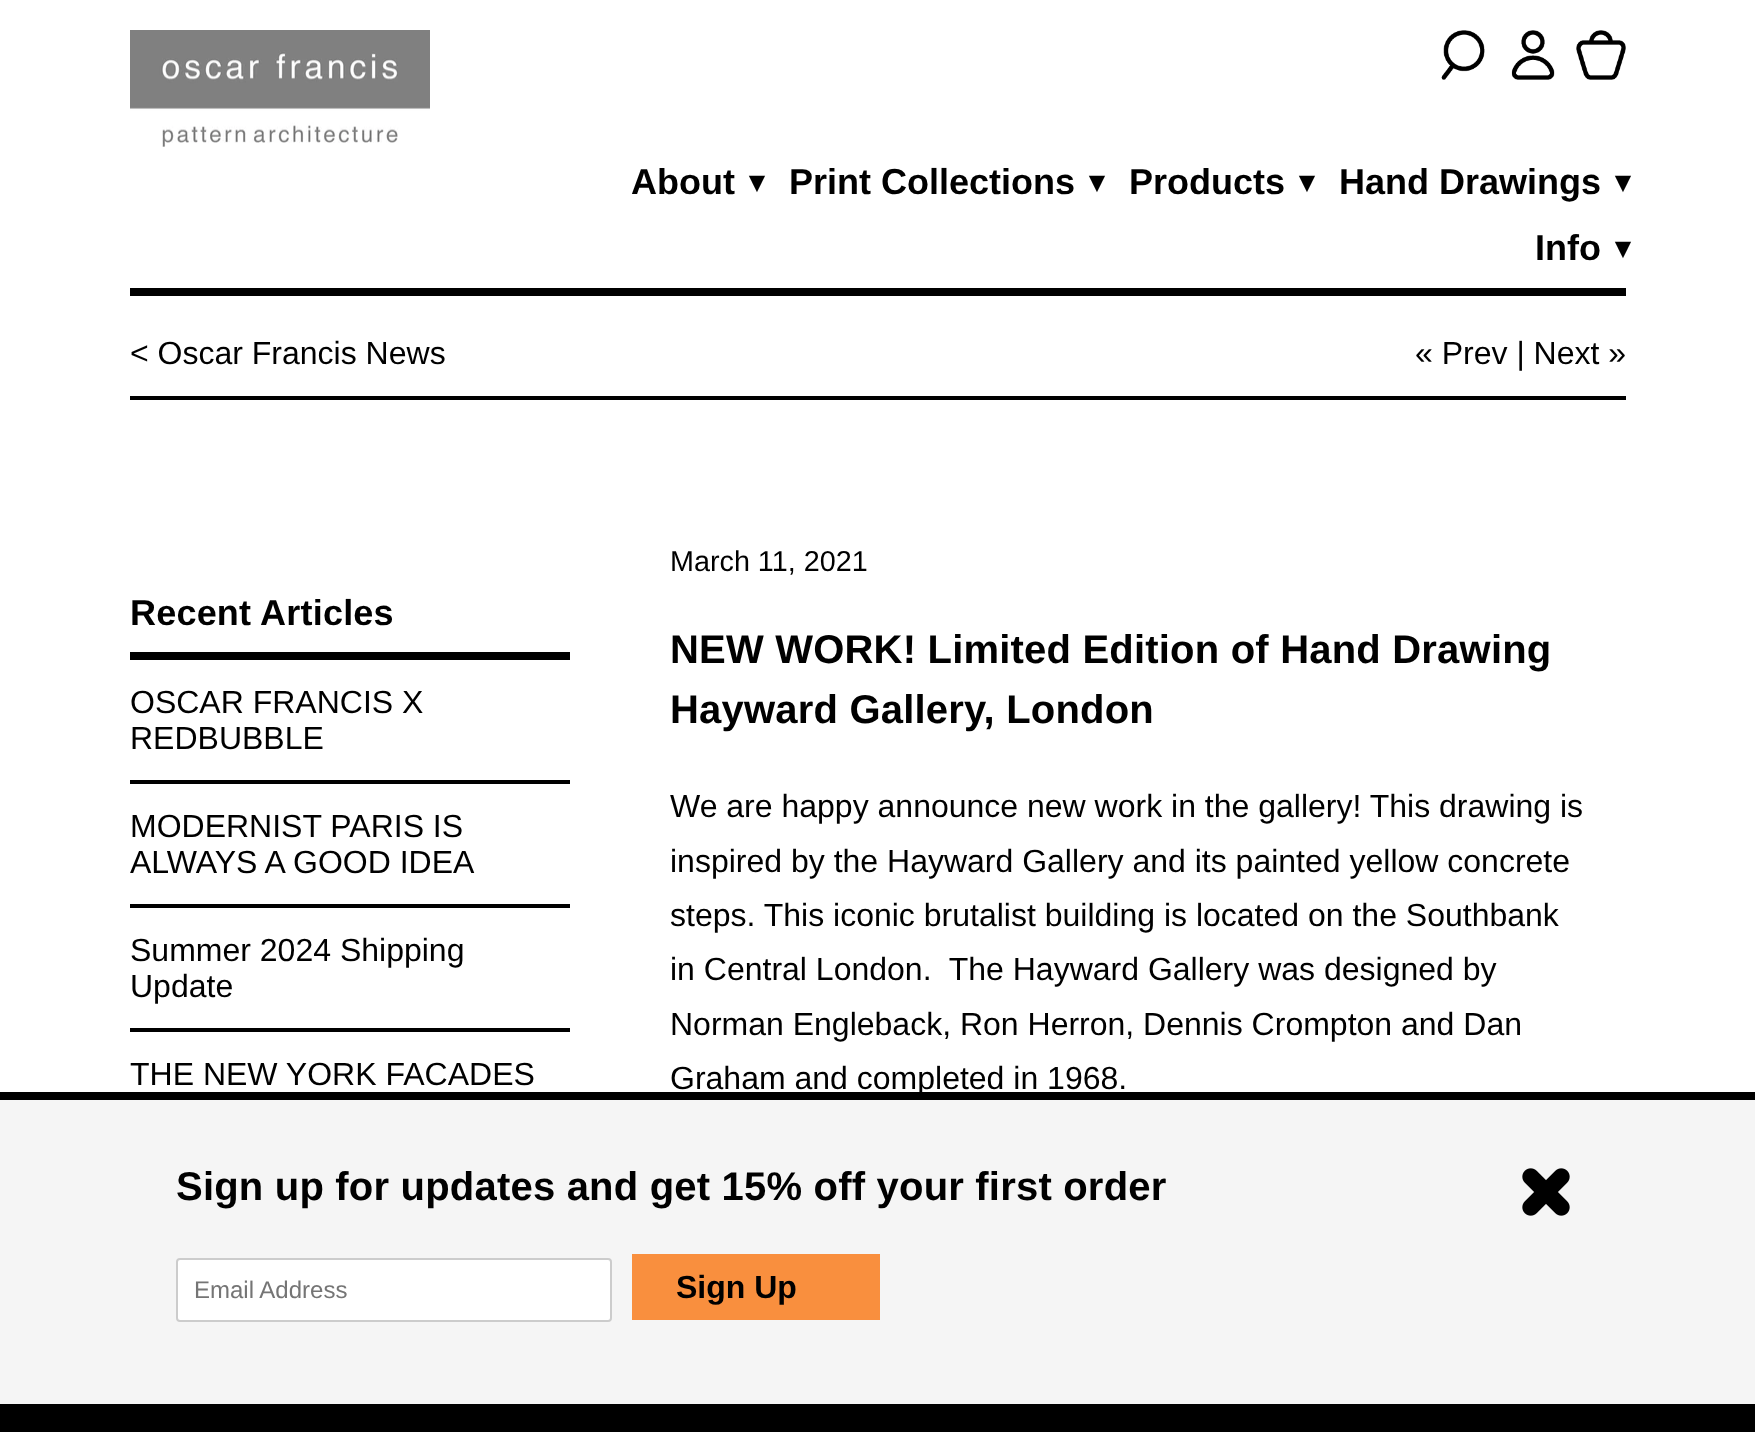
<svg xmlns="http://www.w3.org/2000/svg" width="1755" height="1432">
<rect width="100%" height="100%" fill="#fff"/>
<rect x="130" y="288" width="1496" height="8" fill="#000"/>
<image x="130" y="30" width="300" height="117" href="media/1.png"/>
<image x="1441" y="30" width="44" height="50" href="media/2.png"/>
<image x="1511" y="30" width="44" height="50" href="media/3.png"/>
<image x="1576" y="30" width="50" height="50" href="media/4.png"/>
<text x="631" y="194" style="font-family:Liberation Sans;font-size:36px;font-weight:bold;fill:#000">About</text>
<text x="749" y="192" style="font-family:DejaVu Sans;font-size:30px;font-weight:bold;fill:#000">▾</text>
<text x="789" y="194" style="font-family:Liberation Sans;font-size:36px;font-weight:bold;fill:#000">Print Collections</text>
<text x="1089" y="192" style="font-family:DejaVu Sans;font-size:30px;font-weight:bold;fill:#000">▾</text>
<text x="1129" y="194" style="font-family:Liberation Sans;font-size:36px;font-weight:bold;fill:#000">Products</text>
<text x="1299" y="192" style="font-family:DejaVu Sans;font-size:30px;font-weight:bold;fill:#000">▾</text>
<text x="1339" y="194" style="font-family:Liberation Sans;font-size:36px;font-weight:bold;fill:#000">Hand Drawings</text>
<text x="1615" y="192" style="font-family:DejaVu Sans;font-size:30px;font-weight:bold;fill:#000">▾</text>
<text x="1535" y="260" style="font-family:Liberation Sans;font-size:36px;font-weight:bold;fill:#000">Info</text>
<text x="1615" y="258" style="font-family:DejaVu Sans;font-size:30px;font-weight:bold;fill:#000">▾</text>
<rect x="130" y="396" width="1496" height="4" fill="#000"/>
<text x="130" y="364" style="font-family:Liberation Sans;font-size:32px;fill:#000">&lt; Oscar Francis News</text>
<text x="1415" y="364" style="font-family:Liberation Sans;font-size:32px;fill:#000">« Prev | Next »</text>
<rect x="130" y="652" width="440" height="8" fill="#000"/>
<text x="130" y="625" style="font-family:Liberation Sans;font-size:36px;font-weight:bold;letter-spacing:0.2px;fill:#000">Recent Articles</text>
<rect x="130" y="780" width="440" height="4" fill="#000"/>
<text x="130" y="713" style="font-family:Liberation Sans;font-size:32px;fill:#000">OSCAR FRANCIS X</text>
<text x="130" y="749" style="font-family:Liberation Sans;font-size:32px;fill:#000">REDBUBBLE</text>
<rect x="130" y="904" width="440" height="4" fill="#000"/>
<text x="130" y="837" style="font-family:Liberation Sans;font-size:32px;fill:#000">MODERNIST PARIS IS</text>
<text x="130" y="873" style="font-family:Liberation Sans;font-size:32px;fill:#000">ALWAYS A GOOD IDEA</text>
<rect x="130" y="1028" width="440" height="4" fill="#000"/>
<text x="130" y="961" style="font-family:Liberation Sans;font-size:32px;fill:#000">Summer 2024 Shipping</text>
<text x="130" y="997" style="font-family:Liberation Sans;font-size:32px;fill:#000">Update</text>
<text x="130" y="1085" style="font-family:Liberation Sans;font-size:32px;fill:#000">THE NEW YORK FACADES</text>
<text x="670" y="571" style="font-family:Liberation Sans;font-size:28.75px;fill:#000">March 11, 2021</text>
<text x="670" y="663" style="font-family:Liberation Sans;font-size:40px;font-weight:bold;letter-spacing:0.2px;fill:#000">NEW WORK! Limited Edition of Hand Drawing</text>
<text x="670" y="723" style="font-family:Liberation Sans;font-size:40px;font-weight:bold;letter-spacing:0.2px;fill:#000">Hayward Gallery, London</text>
<text x="670" y="817" style="font-family:Liberation Sans;font-size:32px;fill:#000">We are happy announce new work in the gallery! This drawing is</text>
<text x="670" y="872" style="font-family:Liberation Sans;font-size:32px;fill:#000">inspired by the Hayward Gallery and its painted yellow concrete</text>
<text x="670" y="926" style="font-family:Liberation Sans;font-size:32px;fill:#000">steps. This iconic brutalist building is located on the Southbank</text>
<text x="670" y="980" style="font-family:Liberation Sans;font-size:32px;fill:#000" xml:space="preserve">in Central London.  The Hayward Gallery was designed by</text>
<text x="670" y="1035" style="font-family:Liberation Sans;font-size:32px;fill:#000">Norman Engleback, Ron Herron, Dennis Crompton and Dan</text>
<text x="670" y="1089" style="font-family:Liberation Sans;font-size:32px;fill:#000">Graham and completed in 1968.</text>
<rect y="1100" width="1755" height="304" fill="#f5f5f5"/>
<rect y="1092" width="1755" height="8" fill="#000"/>
<rect y="1404" width="1755" height="28" fill="#000"/>
<text x="176" y="1200" style="font-family:Liberation Sans;font-size:40px;font-weight:bold;letter-spacing:0.2px;fill:#000">Sign up for updates and get 15% off your first order</text>
<rect x="177" y="1259" width="434" height="62" rx="3" fill="#fff" stroke="#ccc" stroke-width="2"/>
<text x="194" y="1298" style="font-family:Liberation Sans;font-size:24px;fill:#757575">Email Address</text>
<rect x="632" y="1254" width="248" height="66" fill="#f98f3e"/>
<text x="676" y="1298" style="font-family:Liberation Sans;font-size:32px;font-weight:bold;fill:#000">Sign Up</text>
<image x="1522" y="1168" width="48" height="48" href="media/5.png"/>
</svg>
